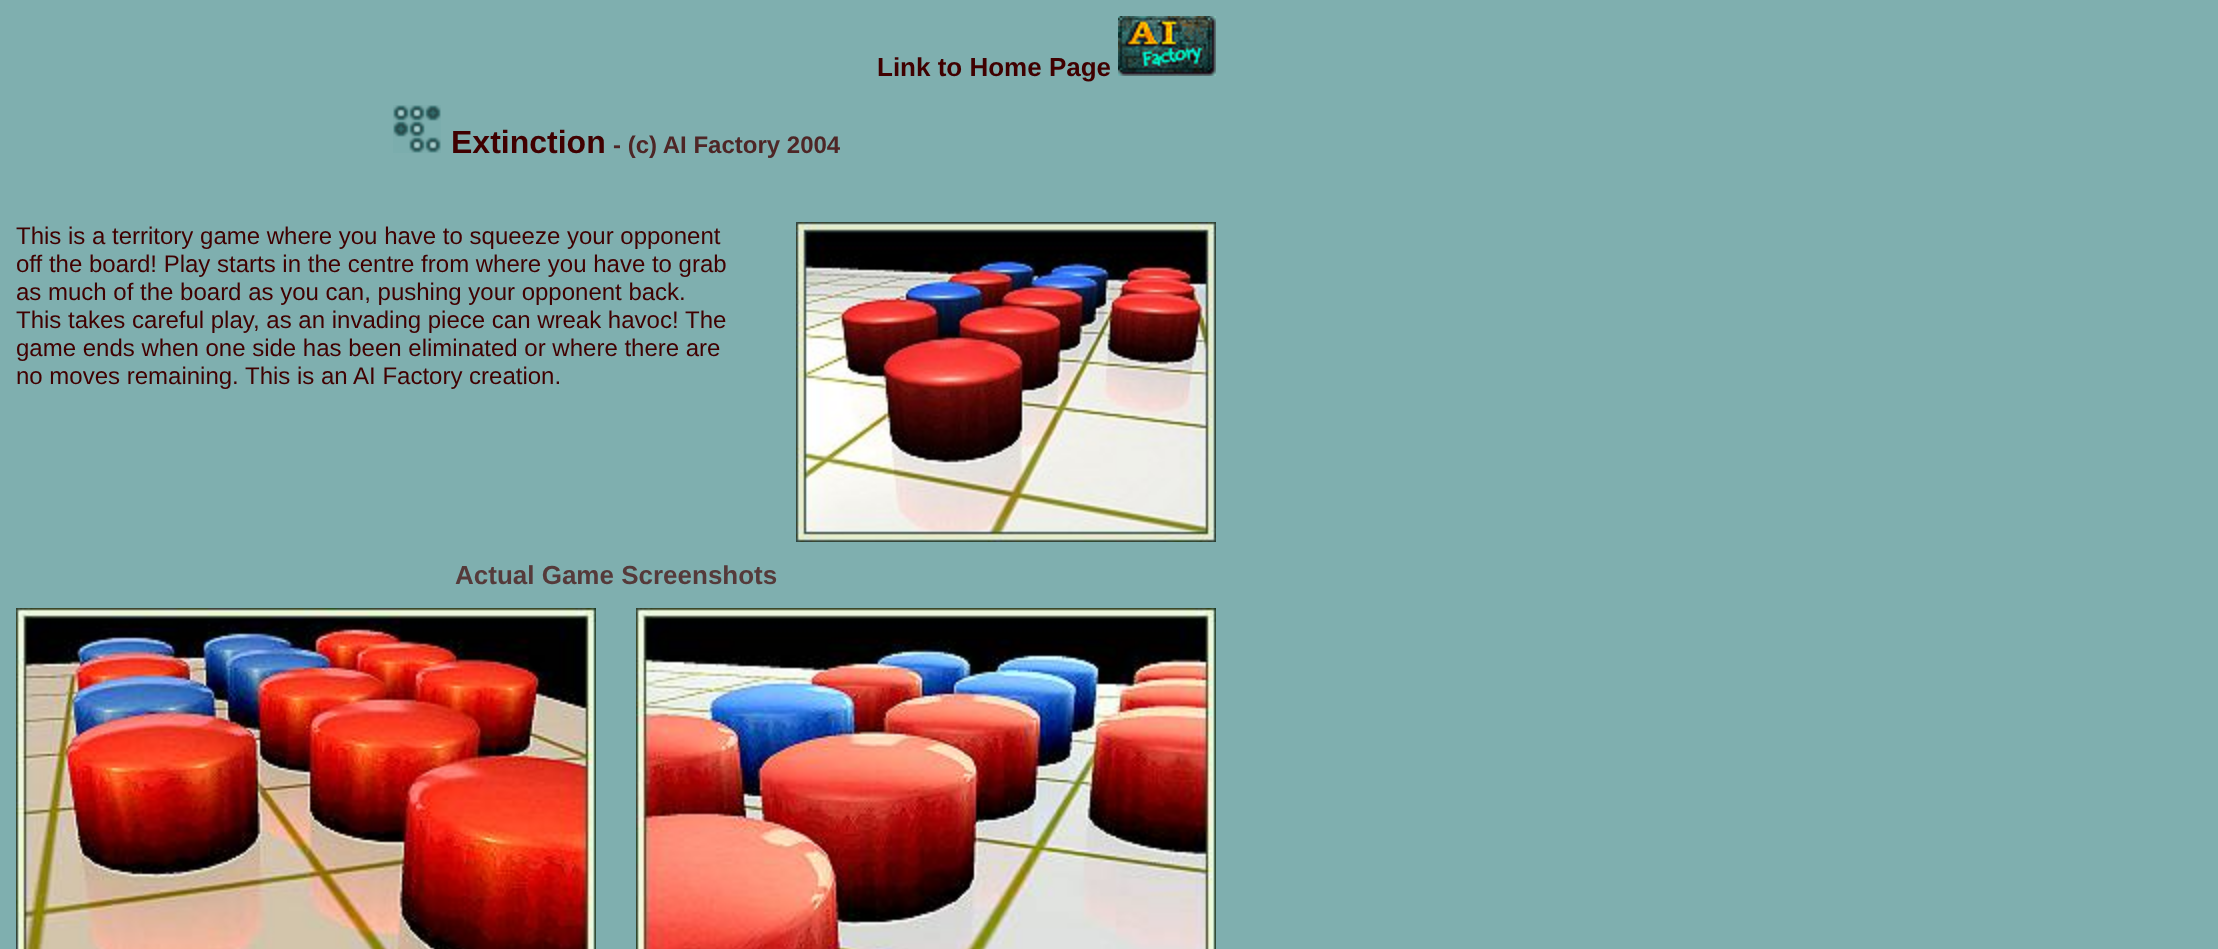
<svg xmlns="http://www.w3.org/2000/svg" width="2218" height="949">
<rect width="100%" height="100%" fill="#7fafaf"/>
<text x="877" y="76" style="font-family:Liberation Sans;font-size:26px;font-weight:bold;fill:#400000">Link to Home Page</text>
<image x="1118" y="16" width="98" height="60" href="media/1.png"/>
<image x="393" y="105" width="48" height="48" href="media/2.png"/>
<text x="451" y="153" style="font-family:Liberation Sans;font-size:32px;font-weight:bold;fill:#400000">Extinction</text>
<text x="613" y="153" style="font-family:Liberation Sans;font-size:24px;font-weight:bold;fill:#4e2626">- (c) AI Factory 2004</text>
<text x="16" y="244" style="font-family:Liberation Sans;font-size:24px;fill:#400000">This is a territory game where you have to squeeze your opponent</text>
<text x="16" y="272" style="font-family:Liberation Sans;font-size:24px;fill:#400000">off the board! Play starts in the centre from where you have to grab</text>
<text x="16" y="300" style="font-family:Liberation Sans;font-size:24px;fill:#400000">as much of the board as you can, pushing your opponent back.</text>
<text x="16" y="328" style="font-family:Liberation Sans;font-size:24px;fill:#400000">This takes careful play, as an invading piece can wreak havoc!</text>
<text x="685" y="328" style="font-family:Liberation Sans;font-size:24px;fill:#400000">The</text>
<text x="16" y="356" style="font-family:Liberation Sans;font-size:24px;fill:#400000">game ends when one side has been eliminated or where there are</text>
<text x="16" y="384" style="font-family:Liberation Sans;font-size:24px;fill:#400000">no moves remaining. This is an AI Factory creation.</text>
<image x="796" y="222" width="420" height="320" href="media/3.png"/>
<text x="455" y="584" style="font-family:Liberation Sans;font-size:26px;font-weight:bold;fill:#553a3a">Actual Game Screenshots</text>
<image x="16" y="608" width="580" height="341" href="media/4.png"/>
<image x="636" y="608" width="580" height="341" href="media/5.png"/>
</svg>
